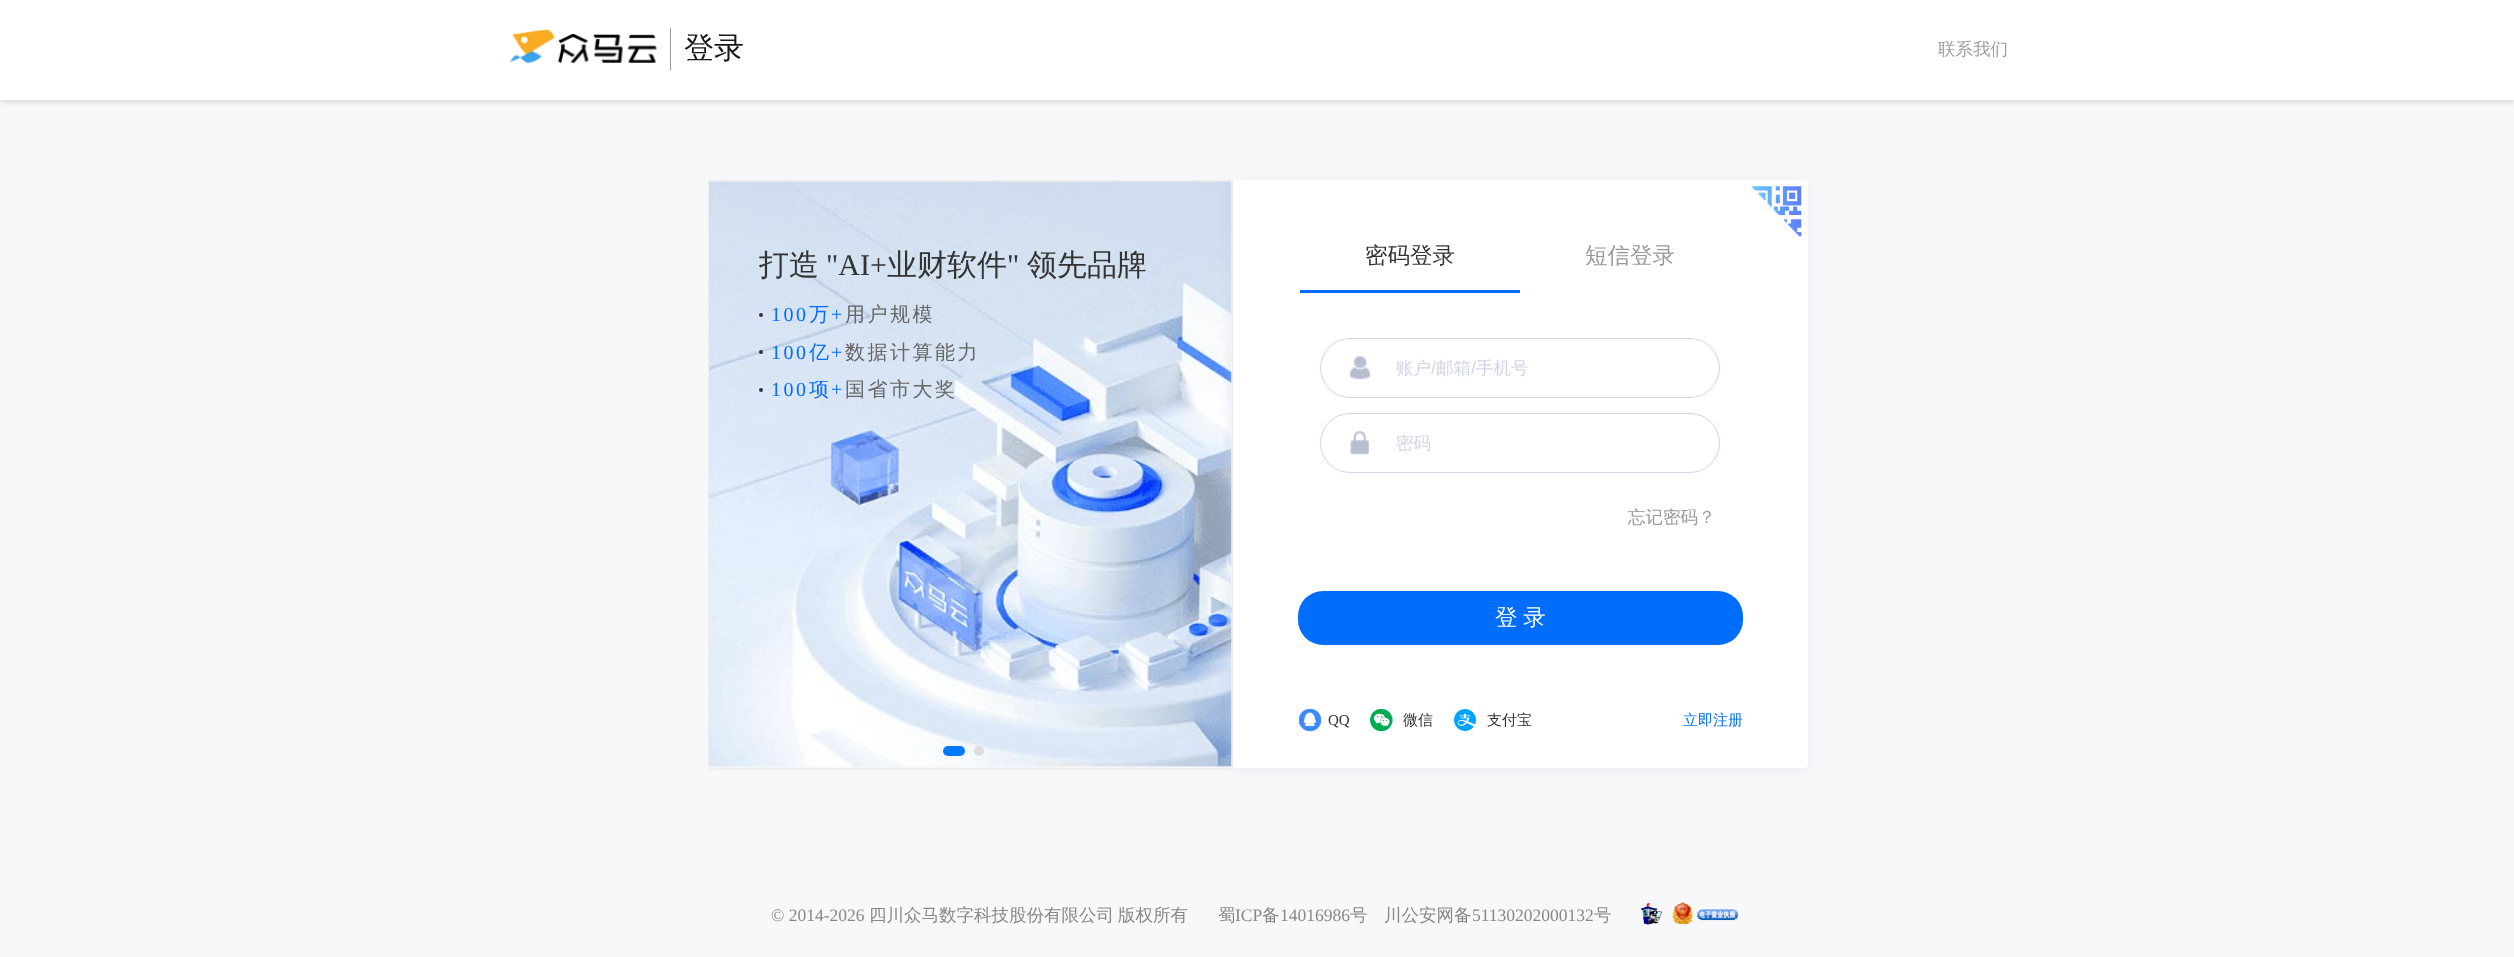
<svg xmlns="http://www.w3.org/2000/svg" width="2514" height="957">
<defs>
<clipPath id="clip1"><rect x="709" y="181" width="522" height="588"/></clipPath>
</defs>
<rect width="100%" height="100%" fill="#f7f8fa"/>
<rect y="3" width="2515" height="100" fill="#0000001a" filter="blur(2.5px)"/>
<rect width="2514" height="100" fill="#fff"/>
<image x="509" y="29" width="148" height="34" href="media/1.png"/>
<rect x="670" y="28" width="1" height="42" fill="#999"/>
<text x="684" y="58" style="font-family:WenQuanYi Zen Hei;font-size:30px;font-weight:500;fill:#181818">登录</text>
<text x="1938" y="55" style="font-family:WenQuanYi Zen Hei;font-size:17.5px;font-weight:500;fill:#9b9ea0">联系我们</text>
<rect x="708.5" y="180.5" width="524" height="589" fill="none" stroke="#eee"/>
<g clip-path="url(#clip1)">
<rect x="709" y="184" width="525" height="587" fill="#bccae040" filter="blur(6px)"/>
</g>
<image x="709" y="181" width="523" height="587" href="media/2.png"/>
<text x="759" y="275" style="font-family:WenQuanYi Zen Hei;font-size:30px;font-weight:500;fill:#333">打造</text>
<text x="826" y="275" style="font-family:Liberation Serif;font-size:30px;fill:#333">"AI+</text>
<text x="887" y="275" style="font-family:WenQuanYi Zen Hei;font-size:30px;font-weight:500;fill:#333">业财软件</text>
<text x="1007" y="275" style="font-family:Liberation Serif;font-size:30px;fill:#333">"</text>
<text x="1027" y="275" style="font-family:WenQuanYi Zen Hei;font-size:30px;font-weight:500;fill:#333">领先品牌</text>
<circle cx="761" cy="315" r="2" fill="#333"/>
<text x="771" y="321" style="font-family:Liberation Serif;font-size:20px;letter-spacing:2.5px;fill:#006dfd">100</text>
<text x="809" y="321" style="font-family:WenQuanYi Zen Hei;font-size:20px;font-weight:500;letter-spacing:2.5px;fill:#006dfd">万</text>
<text x="831" y="321" style="font-family:Liberation Serif;font-size:20px;letter-spacing:2.5px;fill:#006dfd">+</text>
<text x="845" y="321" style="font-family:WenQuanYi Zen Hei;font-size:20px;font-weight:500;letter-spacing:2.5px;fill:#666">用户规模</text>
<circle cx="761" cy="352" r="2" fill="#333"/>
<text x="771" y="359" style="font-family:Liberation Serif;font-size:20px;letter-spacing:2.5px;fill:#006dfd">100</text>
<text x="809" y="359" style="font-family:WenQuanYi Zen Hei;font-size:20px;font-weight:500;letter-spacing:2.5px;fill:#006dfd">亿</text>
<text x="831" y="359" style="font-family:Liberation Serif;font-size:20px;letter-spacing:2.5px;fill:#006dfd">+</text>
<text x="845" y="359" style="font-family:WenQuanYi Zen Hei;font-size:20px;font-weight:500;letter-spacing:2.5px;fill:#666">数据计算能力</text>
<circle cx="761" cy="390" r="2" fill="#333"/>
<text x="771" y="396" style="font-family:Liberation Serif;font-size:20px;letter-spacing:2.5px;fill:#006dfd">100</text>
<text x="809" y="396" style="font-family:WenQuanYi Zen Hei;font-size:20px;font-weight:500;letter-spacing:2.5px;fill:#006dfd">项</text>
<text x="831" y="396" style="font-family:Liberation Serif;font-size:20px;letter-spacing:2.5px;fill:#006dfd">+</text>
<text x="845" y="396" style="font-family:WenQuanYi Zen Hei;font-size:20px;font-weight:500;letter-spacing:2.5px;fill:#666">国省市大奖</text>
<g clip-path="url(#clip1)">
<rect x="1231" y="184" width="525" height="587" fill="#bccae040" filter="blur(6px)"/>
</g>
<rect x="943" y="746" width="22" height="10" rx="5" fill="#007bff"/>
<circle cx="979" cy="751" r="5" fill="#ddd"/>
<rect x="1233" y="183" width="575" height="587" rx="4" fill="#bccae040" filter="blur(6px)"/>
<rect x="1233" y="180" width="575" height="588" rx="4" fill="#fff"/>
<image x="1751" y="186" width="51" height="51" href="media/3.png"/>
<rect x="1300" y="290" width="220" height="3" fill="#006eff"/>
<text x="1365" y="263" style="font-family:WenQuanYi Zen Hei;font-size:22.5px;font-weight:500;fill:#333">密码登录</text>
<text x="1585" y="263" style="font-family:WenQuanYi Zen Hei;font-size:22.5px;font-weight:500;fill:#999">短信登录</text>
<rect x="1320.5" y="338.5" width="399" height="59" rx="29.5" fill="none" stroke="#d1d5e6"/>
<image x="1350" y="356" width="21" height="23" href="media/4.png"/>
<text x="1396" y="374" style="font-family:WenQuanYi Zen Hei;font-size:17.5px;font-weight:500;fill:#d1d5e6">账户</text>
<text x="1431" y="374" style="font-family:Liberation Sans;font-size:17.5px;fill:#d1d5e6">/</text>
<text x="1436" y="374" style="font-family:WenQuanYi Zen Hei;font-size:17.5px;font-weight:500;fill:#d1d5e6">邮箱</text>
<text x="1471" y="374" style="font-family:Liberation Sans;font-size:17.5px;fill:#d1d5e6">/</text>
<text x="1476" y="374" style="font-family:WenQuanYi Zen Hei;font-size:17.5px;font-weight:500;fill:#d1d5e6">手机号</text>
<rect x="1320.5" y="413.5" width="399" height="59" rx="29.5" fill="none" stroke="#d1d5e6"/>
<image x="1350" y="431" width="19" height="24" href="media/5.png"/>
<text x="1396" y="449" style="font-family:WenQuanYi Zen Hei;font-size:17.5px;font-weight:500;fill:#d1d5e6">密码</text>
<text x="1628" y="523" style="font-family:WenQuanYi Zen Hei;font-size:17.5px;font-weight:500;fill:#999">忘记密码？</text>
<rect x="1298" y="591" width="445" height="54" rx="25" fill="#006dfd"/>
<text x="1495" y="625" word-spacing="-1" style="font-family:WenQuanYi Zen Hei;font-size:22.5px;font-weight:500;fill:#fff">登 录</text>
<image x="1298" y="708" width="24" height="24" href="media/6.png"/>
<text x="1328" y="725" style="font-family:Liberation Serif;font-size:15px;fill:#333">QQ</text>
<image x="1370" y="708" width="23" height="24" href="media/7.png"/>
<text x="1403" y="725" style="font-family:WenQuanYi Zen Hei;font-size:15px;font-weight:500;fill:#333">微信</text>
<image x="1454" y="709" width="22" height="22" href="media/8.png"/>
<text x="1487" y="725" style="font-family:WenQuanYi Zen Hei;font-size:15px;font-weight:500;fill:#333">支付宝</text>
<text x="1683" y="725" style="font-family:WenQuanYi Zen Hei;font-size:15px;font-weight:500;fill:#006dfd">立即注册</text>
<text x="771" y="921" style="font-family:Liberation Serif;font-size:17.5px;fill:#888">© 2014-2026</text>
<text x="869" y="921" style="font-family:WenQuanYi Zen Hei;font-size:17.5px;font-weight:500;fill:#888">四川众马数字科技股份有限公司</text>
<text x="1118" y="921" style="font-family:WenQuanYi Zen Hei;font-size:17.5px;font-weight:500;fill:#888">版权所有</text>
<text x="1218" y="921" style="font-family:WenQuanYi Zen Hei;font-size:17.5px;font-weight:500;fill:#888">蜀</text>
<text x="1235" y="921" style="font-family:Liberation Serif;font-size:17.5px;fill:#888">ICP</text>
<text x="1262" y="921" style="font-family:WenQuanYi Zen Hei;font-size:17.5px;font-weight:500;fill:#888">备</text>
<text x="1280" y="921" style="font-family:Liberation Serif;font-size:17.5px;fill:#888">14016986</text>
<text x="1350" y="921" style="font-family:WenQuanYi Zen Hei;font-size:17.5px;font-weight:500;fill:#888">号</text>
<text x="1384" y="921" style="font-family:WenQuanYi Zen Hei;font-size:17.5px;font-weight:500;fill:#888">川公安网备</text>
<text x="1472" y="921" style="font-family:Liberation Serif;font-size:17.5px;fill:#888">51130202000132</text>
<text x="1594" y="921" style="font-family:WenQuanYi Zen Hei;font-size:17.5px;font-weight:500;fill:#888">号</text>
<image x="1641" y="902" width="22" height="23" href="media/9.png"/>
<image x="1672" y="902" width="66" height="23" href="media/10.png"/>
</svg>
